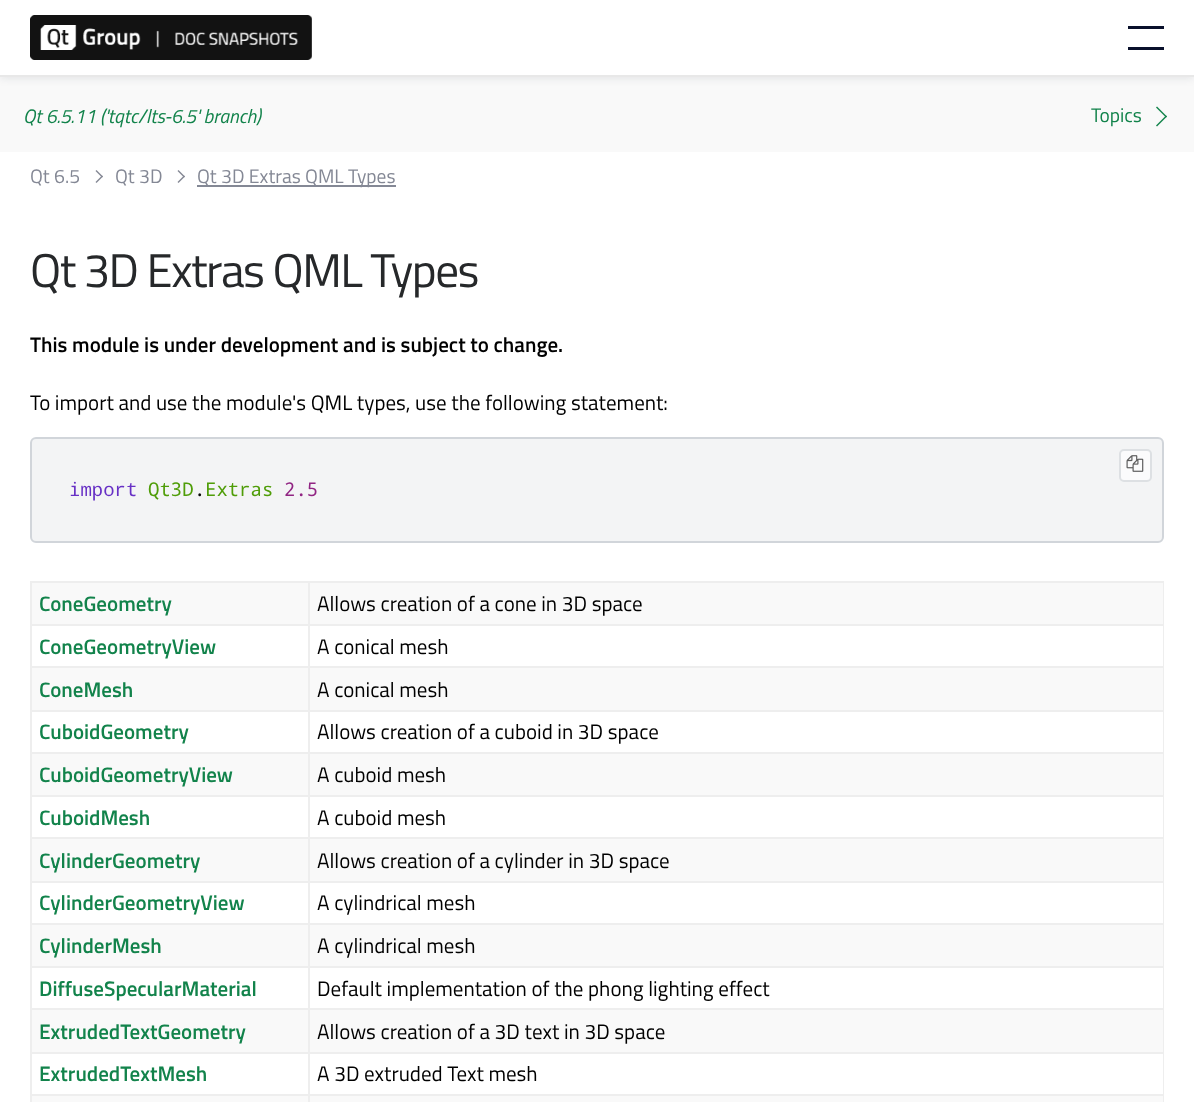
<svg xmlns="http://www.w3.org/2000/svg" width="1194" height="1102">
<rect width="100%" height="100%" fill="#fff"/>
<rect y="77" width="1194" height="75" fill="#f9f9f9"/>
<rect y="2" width="1194" height="76" fill="#09102b1a" filter="blur(4px)"/>
<rect width="1194" height="75" fill="#fff"/>
<rect y="75" width="1194" height="2" fill="#e8e8e8"/>
<image x="30" y="15" width="282" height="45" href="media/1.png"/>
<rect x="1128" y="26" width="36" height="3" fill="#09102b"/>
<rect x="1128" y="47" width="36" height="3" fill="#09102b"/>
<text x="23" y="123" style="font-family:Titillium Web;font-size:19.5px;font-style:italic;fill:#12834b">Qt 6.5.11 ('tqtc/lts-6.5' branch)</text>
<text x="1091" y="122" style="font-family:Titillium Web;font-size:19.5px;fill:#12834b">Topics</text>
<path d="M1156 107.5l1-1l10 10l-1 1z" fill="#12834b"/>
<path d="M1156 125.5l10-10l1 1l-10 10z" fill="#12834b"/>
<text x="30" y="183" style="font-family:Titillium Web;font-size:19.5px;fill:#848895">Qt 6.5</text>
<path d="M95.5 171l1-1l6.5 6.5l-1 1z" fill="#848895"/>
<path d="M95.5 182l6.5-6.5l1 1l-6.5 6.5z" fill="#848895"/>
<text x="115" y="183" style="font-family:Titillium Web;font-size:19.5px;fill:#848895">Qt 3D</text>
<path d="M177.5 171l1-1l6.5 6.5l-1 1z" fill="#848895"/>
<path d="M177.5 182l6.5-6.5l1 1l-6.5 6.5z" fill="#848895"/>
<rect x="197" y="185" width="199" height="2" fill="#848895"/>
<text x="197" y="183" style="font-family:Titillium Web;font-size:19.5px;fill:#848895">Qt 3D Extras QML Types</text>
<text x="30" y="287" style="font-family:Titillium Web;font-size:47.25px;letter-spacing:-1.5px;fill:#26282a">Qt 3D Extras QML Types</text>
<text x="30" y="352" style="font-family:Titillium Web;font-size:21px;font-weight:600;fill:#000">This module is under development and is subject to change.</text>
<text x="30" y="410" style="font-family:Titillium Web;font-size:21px;fill:#000">To import and use the module's QML types, use the following statement:</text>
<rect x="31" y="438" width="1132" height="104" rx="5" fill="#f3f4f5" stroke="#d1d5da" stroke-width="2"/>
<rect x="1120" y="450" width="31" height="31" rx="4" fill="#fbfbfc" stroke="#dde0e3" stroke-width="2"/>
<image x="1126" y="455" width="18" height="17" href="media/2.png"/>
<text x="69" y="496" style="font-family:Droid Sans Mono;font-size:19px;fill:#6730c5">import</text>
<text x="148" y="496" style="font-family:Droid Sans Mono;font-size:19px;fill:#4f9d08">Qt3D Extras</text>
<text x="284" y="496" style="font-family:Droid Sans Mono;font-size:19px;fill:#912583">2.5</text>
<text x="194" y="496" style="font-family:Droid Sans Mono;font-size:19px;fill:#080808">.</text>
<rect x="30" y="581" width="1134" height="2" fill="#eee"/>
<rect x="32" y="1096" width="1132" height="6" fill="#f9f9f9"/>
<rect x="1163" y="581" width="1" height="521" fill="#eee"/>
<rect x="30" y="581" width="2" height="521" fill="#eee"/>
<rect x="32" y="583" width="1131" height="41" fill="#f9f9f9"/>
<text x="39" y="611" style="font-family:Titillium Web;font-size:21px;font-weight:600;fill:#12834b">ConeGeometry</text>
<rect x="308" y="624" width="856" height="2" fill="#eee"/>
<rect x="308" y="666" width="856" height="2" fill="#eee"/>
<rect x="32" y="668" width="1131" height="42" fill="#f9f9f9"/>
<rect x="308" y="710" width="856" height="2" fill="#eee"/>
<rect x="308" y="752" width="856" height="2" fill="#eee"/>
<rect x="32" y="754" width="1131" height="41" fill="#f9f9f9"/>
<rect x="308" y="795" width="856" height="2" fill="#eee"/>
<rect x="308" y="837" width="856" height="2" fill="#eee"/>
<rect x="32" y="839" width="1131" height="42" fill="#f9f9f9"/>
<rect x="308" y="881" width="856" height="2" fill="#eee"/>
<rect x="308" y="923" width="856" height="2" fill="#eee"/>
<rect x="32" y="925" width="1131" height="41" fill="#f9f9f9"/>
<rect x="308" y="966" width="856" height="2" fill="#eee"/>
<rect x="308" y="1008" width="856" height="2" fill="#eee"/>
<rect x="32" y="1010" width="1131" height="42" fill="#f9f9f9"/>
<rect x="308" y="1052" width="856" height="2" fill="#eee"/>
<rect x="308" y="1094" width="856" height="2" fill="#eee"/>
<rect x="308" y="1094" width="2" height="8" fill="#eee"/>
<rect x="30" y="1094" width="279" height="2" fill="#eee"/>
<rect x="308" y="1052" width="2" height="43" fill="#eee"/>
<rect x="30" y="1052" width="279" height="2" fill="#eee"/>
<rect x="308" y="1008" width="2" height="45" fill="#eee"/>
<rect x="30" y="1008" width="279" height="2" fill="#eee"/>
<rect x="308" y="966" width="2" height="44" fill="#eee"/>
<rect x="30" y="966" width="279" height="2" fill="#eee"/>
<rect x="308" y="923" width="2" height="45" fill="#eee"/>
<rect x="30" y="923" width="279" height="2" fill="#eee"/>
<rect x="308" y="881" width="2" height="43" fill="#eee"/>
<rect x="30" y="881" width="279" height="2" fill="#eee"/>
<rect x="308" y="837" width="2" height="45" fill="#eee"/>
<rect x="30" y="837" width="279" height="2" fill="#eee"/>
<rect x="308" y="795" width="2" height="44" fill="#eee"/>
<rect x="30" y="795" width="279" height="2" fill="#eee"/>
<rect x="308" y="752" width="2" height="45" fill="#eee"/>
<rect x="30" y="752" width="279" height="2" fill="#eee"/>
<rect x="308" y="710" width="2" height="43" fill="#eee"/>
<rect x="30" y="710" width="279" height="2" fill="#eee"/>
<rect x="308" y="666" width="2" height="45" fill="#eee"/>
<rect x="30" y="666" width="279" height="2" fill="#eee"/>
<rect x="308" y="624" width="2" height="44" fill="#eee"/>
<rect x="30" y="624" width="279" height="2" fill="#eee"/>
<rect x="308" y="581" width="2" height="45" fill="#eee"/>
<text x="317" y="611" style="font-family:Titillium Web;font-size:21px;fill:#000">Allows creation of a cone in 3D space</text>
<text x="39" y="654" style="font-family:Titillium Web;font-size:21px;font-weight:600;fill:#12834b">ConeGeometryView</text>
<text x="317" y="654" style="font-family:Titillium Web;font-size:21px;fill:#000">A conical mesh</text>
<text x="39" y="697" style="font-family:Titillium Web;font-size:21px;font-weight:600;fill:#12834b">ConeMesh</text>
<text x="317" y="697" style="font-family:Titillium Web;font-size:21px;fill:#000">A conical mesh</text>
<text x="39" y="739" style="font-family:Titillium Web;font-size:21px;font-weight:600;fill:#12834b">CuboidGeometry</text>
<text x="317" y="739" style="font-family:Titillium Web;font-size:21px;fill:#000">Allows creation of a cuboid in 3D space</text>
<text x="39" y="782" style="font-family:Titillium Web;font-size:21px;font-weight:600;fill:#12834b">CuboidGeometryView</text>
<text x="317" y="782" style="font-family:Titillium Web;font-size:21px;fill:#000">A cuboid mesh</text>
<text x="39" y="825" style="font-family:Titillium Web;font-size:21px;font-weight:600;fill:#12834b">CuboidMesh</text>
<text x="317" y="825" style="font-family:Titillium Web;font-size:21px;fill:#000">A cuboid mesh</text>
<text x="39" y="868" style="font-family:Titillium Web;font-size:21px;font-weight:600;fill:#12834b">CylinderGeometry</text>
<text x="317" y="868" style="font-family:Titillium Web;font-size:21px;fill:#000">Allows creation of a cylinder in 3D space</text>
<text x="39" y="910" style="font-family:Titillium Web;font-size:21px;font-weight:600;fill:#12834b">CylinderGeometryView</text>
<text x="317" y="910" style="font-family:Titillium Web;font-size:21px;fill:#000">A cylindrical mesh</text>
<text x="39" y="953" style="font-family:Titillium Web;font-size:21px;font-weight:600;fill:#12834b">CylinderMesh</text>
<text x="317" y="953" style="font-family:Titillium Web;font-size:21px;fill:#000">A cylindrical mesh</text>
<text x="39" y="996" style="font-family:Titillium Web;font-size:21px;font-weight:600;fill:#12834b">DiffuseSpecularMaterial</text>
<text x="317" y="996" style="font-family:Titillium Web;font-size:21px;fill:#000">Default implementation of the phong lighting effect</text>
<text x="39" y="1039" style="font-family:Titillium Web;font-size:21px;font-weight:600;fill:#12834b">ExtrudedTextGeometry</text>
<text x="317" y="1039" style="font-family:Titillium Web;font-size:21px;fill:#000">Allows creation of a 3D text in 3D space</text>
<text x="39" y="1081" style="font-family:Titillium Web;font-size:21px;font-weight:600;fill:#12834b">ExtrudedTextMesh</text>
<text x="317" y="1081" style="font-family:Titillium Web;font-size:21px;fill:#000">A 3D extruded Text mesh</text>
</svg>
